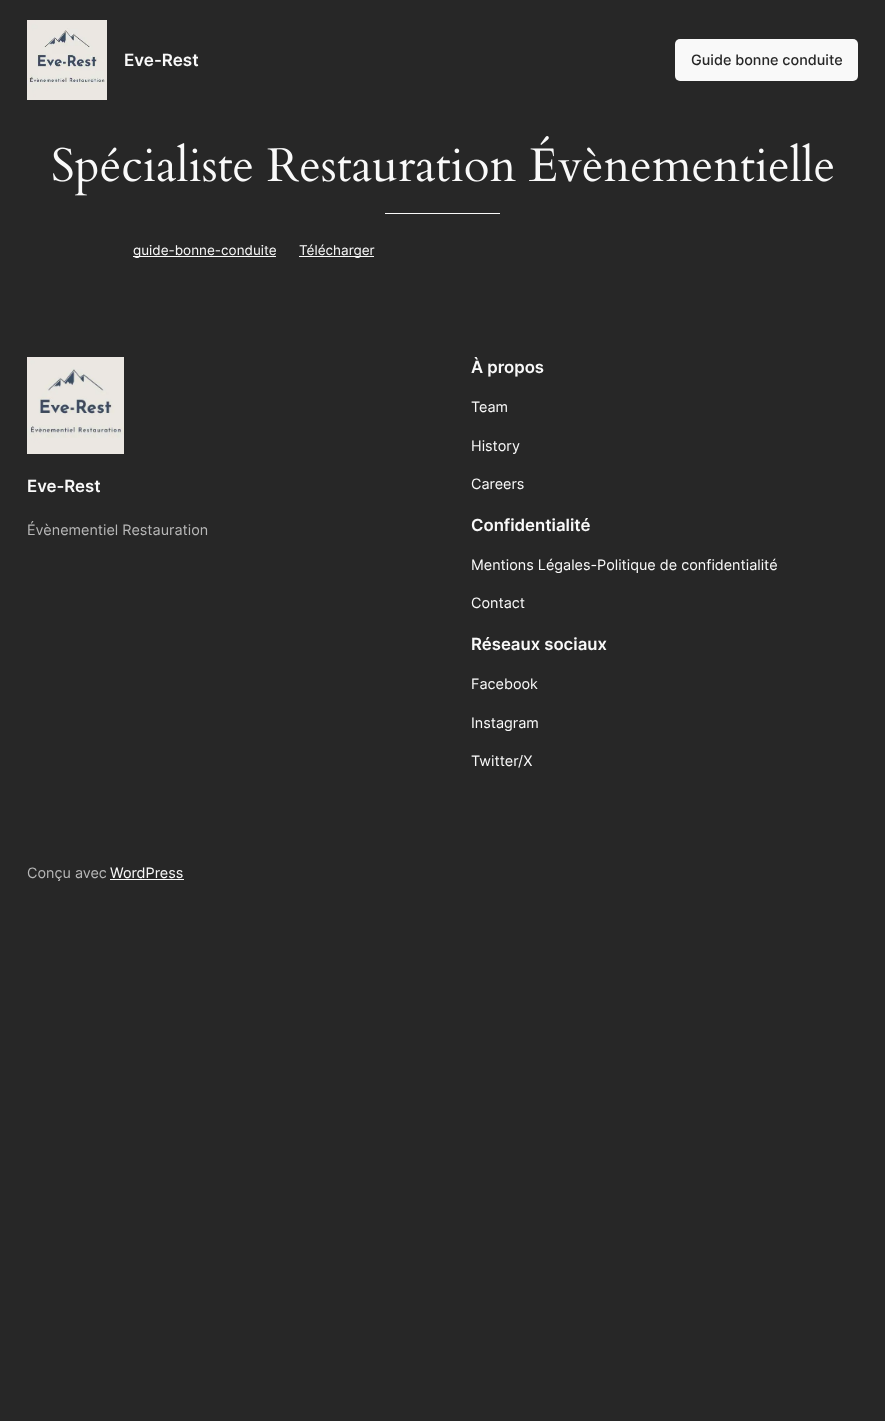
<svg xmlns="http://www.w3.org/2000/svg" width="885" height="1421">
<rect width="100%" height="100%" fill="#272727"/>
<image x="27" y="20" width="80" height="80" href="media/1.png"/>
<text x="124" y="66" style="font-family:Inter;font-size:17px;font-weight:600;fill:#f9f9f9">Eve-Rest</text>
<rect x="675" y="39" width="183" height="42" rx="5" fill="#f9f9f9"/>
<text x="691" y="65" style="font-family:Inter;font-size:14.4px;font-weight:500;fill:#272727">Guide bonne conduite</text>
<image x="53" y="136" width="780" height="60" href="media/2.png"/>
<rect x="385" y="213" width="115" height="1" fill="#f9f9f9"/>
<rect x="133" y="256" width="143" height="1" fill="#f9f9f9"/>
<text x="133" y="255" style="font-family:Inter;font-size:13.5px;fill:#f9f9f9">guide-bonne-conduite</text>
<rect x="299" y="256" width="75" height="1" fill="#f9f9f9"/>
<text x="299" y="255" style="font-family:Inter;font-size:13.5px;fill:#f9f9f9">Télécharger</text>
<image x="27" y="357" width="97" height="97" href="media/3.png"/>
<text x="27" y="492" style="font-family:Inter;font-size:16.75px;font-weight:600;fill:#f9f9f9">Eve-Rest</text>
<text x="27" y="535" style="font-family:Inter;font-size:14.4px;fill:#b7b7b7">Évènementiel Restauration</text>
<text x="471" y="373" style="font-family:Inter;font-size:16.75px;font-weight:600;fill:#f9f9f9">À propos</text>
<text x="471" y="412" style="font-family:Inter;font-size:14.4px;fill:#f9f9f9">Team</text>
<text x="471" y="451" style="font-family:Inter;font-size:14.4px;fill:#f9f9f9">History</text>
<text x="471" y="489" style="font-family:Inter;font-size:14.4px;fill:#f9f9f9">Careers</text>
<text x="471" y="531" style="font-family:Inter;font-size:16.75px;font-weight:600;fill:#f9f9f9">Confidentialité</text>
<text x="471" y="570" style="font-family:Inter;font-size:14.4px;fill:#f9f9f9">Mentions Légales-Politique de confidentialité</text>
<text x="471" y="608" style="font-family:Inter;font-size:14.4px;fill:#f9f9f9">Contact</text>
<text x="471" y="650" style="font-family:Inter;font-size:16.75px;font-weight:600;fill:#f9f9f9">Réseaux sociaux</text>
<text x="471" y="689" style="font-family:Inter;font-size:14.4px;fill:#f9f9f9">Facebook</text>
<text x="471" y="728" style="font-family:Inter;font-size:14.4px;fill:#f9f9f9">Instagram</text>
<text x="471" y="766" style="font-family:Inter;font-size:14.4px;fill:#f9f9f9">Twitter/X</text>
<text x="27" y="878" style="font-family:Inter;font-size:14.4px;fill:#b7b7b7">Conçu avec</text>
<text x="110" y="878" style="font-family:Inter;font-size:14.4px;fill:#f9f9f9">WordPress</text>
<rect x="110" y="879" width="74" height="1" fill="#f9f9f9"/>
</svg>
